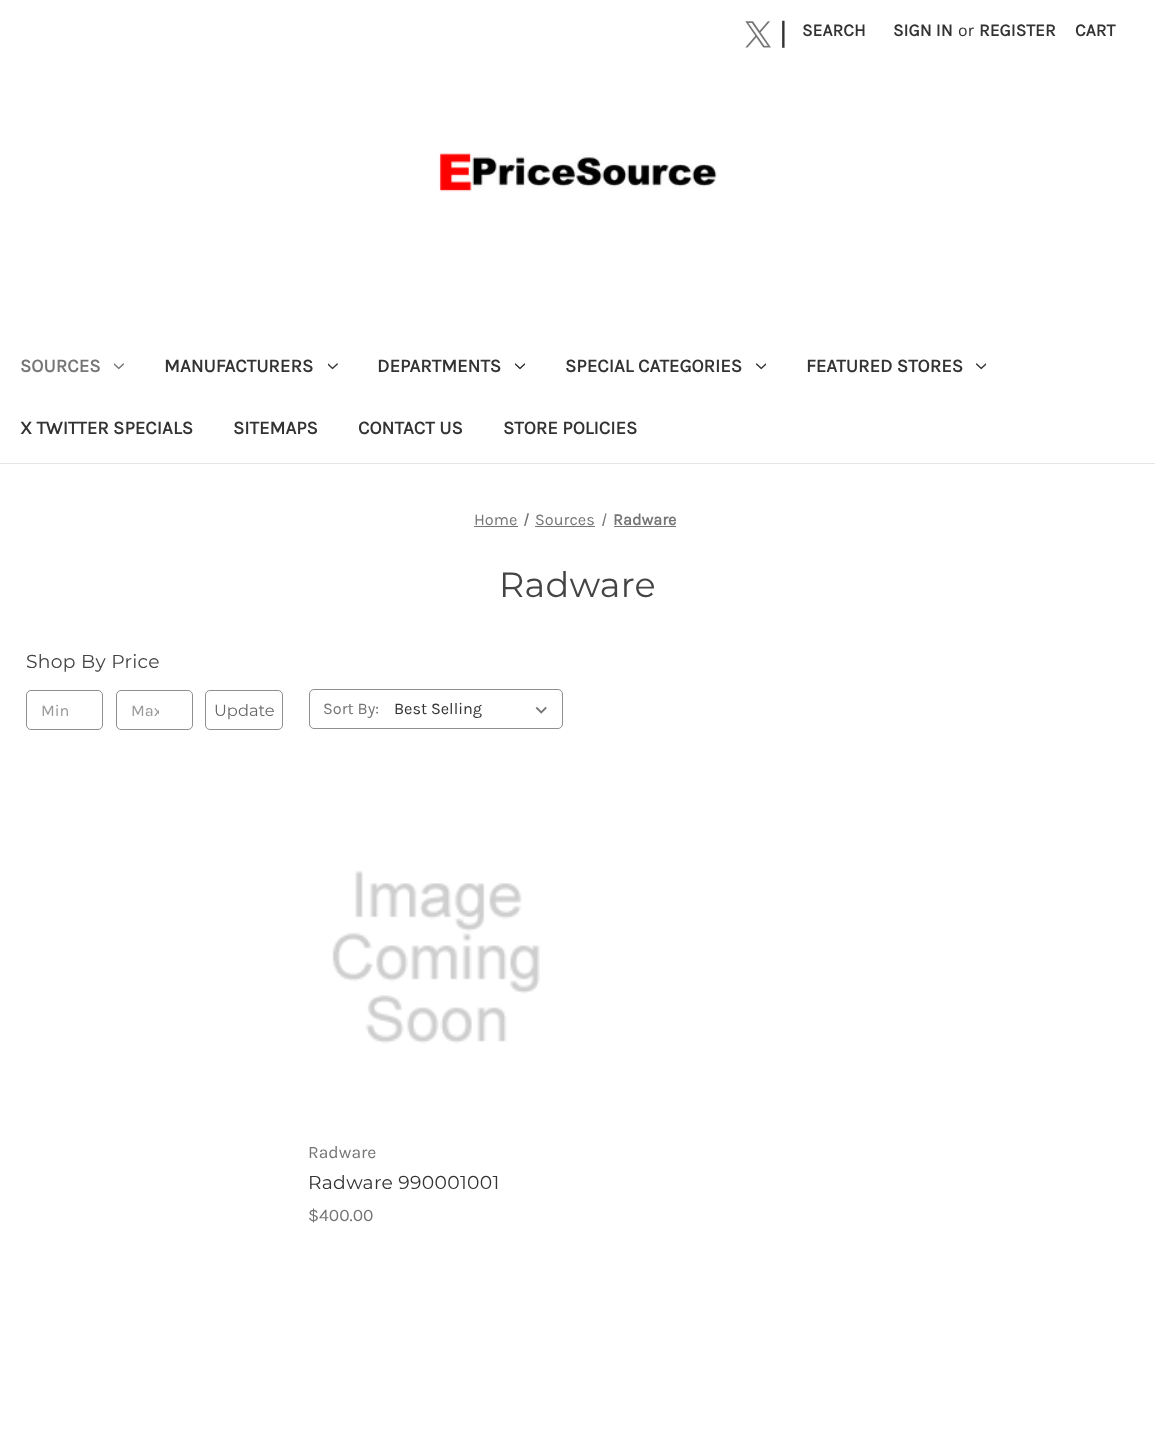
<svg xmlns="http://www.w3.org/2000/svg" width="1155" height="1435">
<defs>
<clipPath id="clip1"><rect x="131" y="700" width="28" height="19"/></clipPath>
</defs>
<rect width="100%" height="100%" fill="#fff"/>
<rect y="463" width="1155" height="1" fill="#e5e5e5"/>
<image x="745" y="21" width="26" height="27" href="media/1.png"/>
<text x="779" y="44" style="font-family:Karla;font-size:31px;fill:#333">|</text>
<text x="802" y="36" style="font-family:Karla;font-size:17.5px;font-weight:bold;fill:#333">SEARCH</text>
<text x="893" y="36" style="font-family:Karla;font-size:17.5px;font-weight:bold;fill:#333">SIGN IN</text>
<text x="958" y="36" style="font-family:Karla;font-size:17.5px;fill:#333">or</text>
<text x="979" y="36" style="font-family:Karla;font-size:17.5px;font-weight:bold;fill:#333">REGISTER</text>
<text x="1075" y="36" style="font-family:Karla;font-size:17.5px;font-weight:bold;fill:#333">CART</text>
<image x="439" y="153" width="278" height="39" href="media/2.png"/>
<text x="20" y="372" style="font-family:Karla;font-size:18.75px;font-weight:bold;fill:#757575">SOURCES</text>
<image x="114" y="363" width="10" height="7" href="media/3.png"/>
<text x="164" y="372" style="font-family:Karla;font-size:18.75px;font-weight:bold;fill:#333">MANUFACTURERS</text>
<image x="328" y="363" width="10" height="7" href="media/4.png"/>
<text x="377" y="372" style="font-family:Karla;font-size:18.75px;font-weight:bold;fill:#333">DEPARTMENTS</text>
<image x="515" y="363" width="10" height="7" href="media/5.png"/>
<text x="565" y="372" style="font-family:Karla;font-size:18.75px;font-weight:bold;fill:#333">SPECIAL CATEGORIES</text>
<image x="756" y="363" width="10" height="7" href="media/6.png"/>
<text x="806" y="372" style="font-family:Karla;font-size:18.75px;font-weight:bold;fill:#333">FEATURED STORES</text>
<image x="976" y="363" width="10" height="7" href="media/6.png"/>
<text x="20" y="434" style="font-family:Karla;font-size:18.75px;font-weight:bold;fill:#333">X TWITTER SPECIALS</text>
<text x="233" y="434" style="font-family:Karla;font-size:18.75px;font-weight:bold;fill:#333">SITEMAPS</text>
<text x="358" y="434" style="font-family:Karla;font-size:18.75px;font-weight:bold;fill:#333">CONTACT US</text>
<text x="503" y="434" style="font-family:Karla;font-size:18.75px;font-weight:bold;fill:#333">STORE POLICIES</text>
<text x="474" y="525" style="font-family:Karla;font-size:16.25px;fill:#757575">Home</text>
<rect x="474" y="526" width="44" height="1" fill="#757575"/>
<path d="M527.5 513l1.5 .5l-3.5 12.5h-1.5z" fill="#757575"/>
<text x="535" y="525" style="font-family:Karla;font-size:16.25px;fill:#757575">Sources</text>
<rect x="535" y="526" width="60" height="1" fill="#757575"/>
<path d="M605.5 513l1 .5l-3 12.5h-1.5z" fill="#757575"/>
<text x="613" y="525" style="font-family:Karla;font-size:16.25px;font-weight:bold;fill:#757575">Radware</text>
<rect x="614" y="526" width="62" height="1" fill="#757575"/>
<text x="499" y="597" style="font-family:Montserrat;font-size:35px;letter-spacing:0.3px;fill:#444">Radware</text>
<text x="26" y="668" style="font-family:Montserrat;font-size:18.75px;letter-spacing:0.3px;fill:#444">Shop By Price</text>
<rect x="26.5" y="690.5" width="76" height="39" rx="4.5" fill="none" stroke="#8f8f8f"/>
<text x="41" y="716" style="font-family:Karla;font-size:16.25px;fill:#999">Min</text>
<rect x="116.5" y="690.5" width="76" height="39" rx="4.5" fill="none" stroke="#8f8f8f"/>
<g clip-path="url(#clip1)">
<text x="131" y="716" style="font-family:Karla;font-size:16.25px;fill:#999">Max</text>
</g>
<rect x="205.5" y="690.5" width="77" height="39" rx="4.5" fill="none" stroke="#8f8f8f"/>
<text x="214" y="716" style="font-family:Montserrat;font-size:16.25px;fill:#666">Update</text>
<rect x="309.5" y="689.5" width="253" height="39" rx="4.5" fill="none" stroke="#8f8f8f"/>
<text x="323" y="714" style="font-family:Karla;font-size:16.25px;fill:#757575">Sort By:</text>
<image x="535" y="706" width="12" height="8" href="media/7.png"/>
<text x="394" y="714" style="font-family:Karla;font-size:16.25px;fill:#333">Best Selling</text>
<image x="332" y="870" width="208" height="174" href="media/8.png"/>
<text x="308" y="1158" style="font-family:Karla;font-size:17.5px;fill:#757575">Radware</text>
<text x="308" y="1189" style="font-family:Montserrat;font-size:18.75px;letter-spacing:0.3px;fill:#333">Radware 990001001</text>
<text x="308" y="1221" style="font-family:Karla;font-size:17.5px;fill:#757575">$400.00</text>
</svg>
